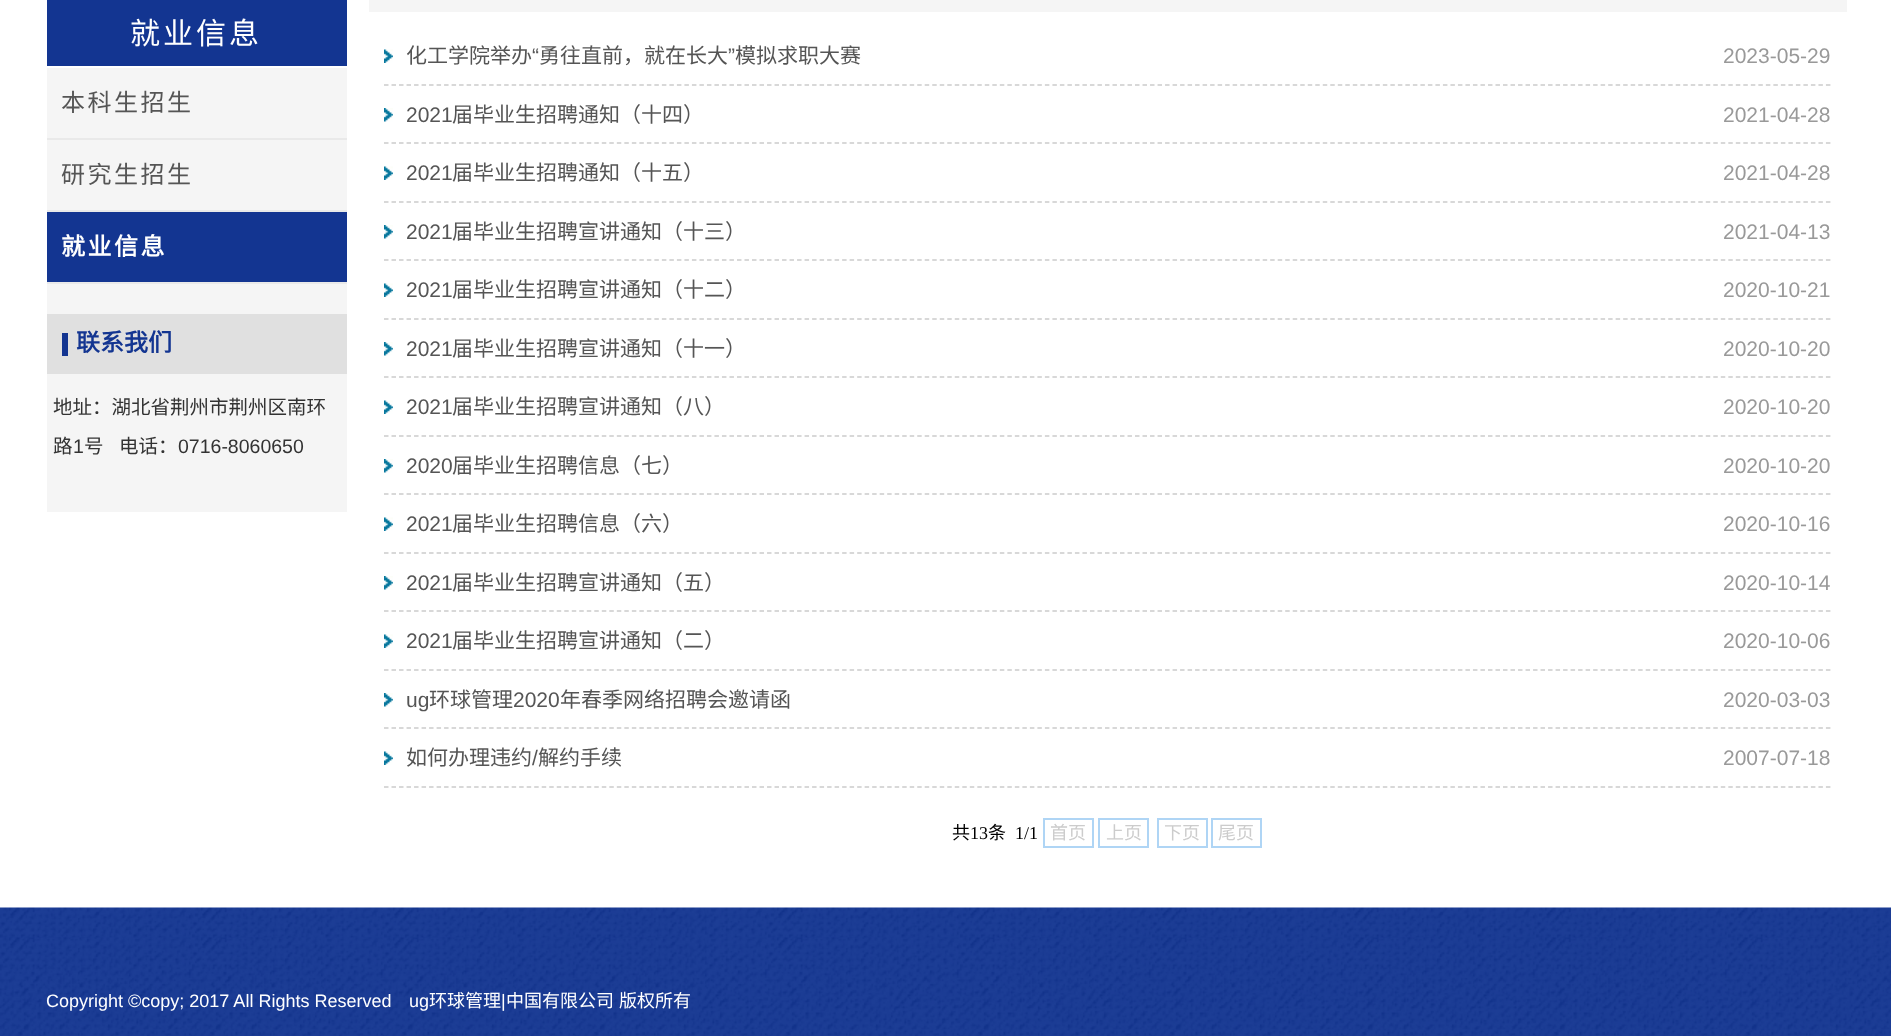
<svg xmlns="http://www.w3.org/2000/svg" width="1891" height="1036">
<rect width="100%" height="100%" fill="#fff"/>
<rect x="47" y="68" width="300" height="444" fill="#f5f5f5"/>
<rect x="47" width="300" height="66" fill="#133591"/>
<text x="130" y="44" style="font-family:Noto Sans CJK SC;font-size:30px;letter-spacing:3px;fill:#fff">就业信息</text>
<rect x="47" y="138" width="300" height="2" fill="#e9e9e9"/>
<text x="61" y="111" style="font-family:Noto Sans CJK SC;font-size:24px;letter-spacing:2.5px;fill:#555">本科生招生</text>
<rect x="47" y="210" width="300" height="2" fill="#e9e9e9"/>
<text x="61" y="183" style="font-family:Noto Sans CJK SC;font-size:24px;letter-spacing:2.5px;fill:#555">研究生招生</text>
<rect x="47" y="282" width="300" height="2" fill="#e9e9e9"/>
<rect x="47" y="212" width="300" height="70" fill="#133591"/>
<text x="61" y="255" style="font-family:Noto Sans CJK SC;font-size:24px;font-weight:bold;letter-spacing:2.5px;fill:#fff">就业信息</text>
<rect x="47" y="314" width="300" height="60" fill="#e0e0e0"/>
<rect x="62" y="333" width="6" height="23" fill="#133591"/>
<text x="76" y="351" style="font-family:Noto Sans CJK SC;font-size:24px;font-weight:bold;fill:#133591">联系我们</text>
<text x="53" y="414" style="font-family:Noto Sans CJK SC;font-size:19.5px;fill:#333">地址：湖北省荆州市荆州区南环</text>
<text x="53" y="453" style="font-family:Noto Sans CJK SC;font-size:19.5px;fill:#333">路</text>
<text x="73" y="453" style="font-family:Liberation Sans;font-size:19.5px;fill:#333">1</text>
<text x="84" y="453" style="font-family:Noto Sans CJK SC;font-size:19.5px;fill:#333">号</text>
<text x="119" y="453" style="font-family:Noto Sans CJK SC;font-size:19.5px;fill:#333">电话：</text>
<text x="178" y="453" style="font-family:Liberation Sans;font-size:19.5px;fill:#333">0716-8060650</text>
<rect x="369" width="1478" height="12" fill="#f5f5f5"/>
<image x="384" y="49" width="9" height="14" href="media/1.png"/>
<path d="M384 85h1447.5" fill="none" stroke="#ccc" stroke-width="1.5" stroke-dasharray="4.5 3.01"/>
<text x="406" y="63" style="font-family:Noto Sans CJK SC;font-size:21px;fill:#555">化工学院举办</text>
<text x="532" y="63" style="font-family:Liberation Sans;font-size:21px;fill:#555">“</text>
<text x="539" y="63" style="font-family:Noto Sans CJK SC;font-size:21px;fill:#555">勇往直前，就在长大</text>
<text x="728" y="63" style="font-family:Liberation Sans;font-size:21px;fill:#555">”</text>
<text x="735" y="63" style="font-family:Noto Sans CJK SC;font-size:21px;fill:#555">模拟求职大赛</text>
<text x="1723" y="63" style="font-family:Liberation Sans;font-size:21px;fill:#999">2023-05-29</text>
<image x="384" y="108" width="9" height="14" href="media/2.png"/>
<path d="M384 143h1447.5" fill="none" stroke="#ccc" stroke-width="1.5" stroke-dasharray="4.5 3.01"/>
<text x="406" y="122" style="font-family:Liberation Sans;font-size:21px;fill:#555">2021</text>
<text x="452" y="122" style="font-family:Noto Sans CJK SC;font-size:21px;fill:#555">届毕业生招聘通知（十四）</text>
<text x="1723" y="122" style="font-family:Liberation Sans;font-size:21px;fill:#999">2021-04-28</text>
<image x="384" y="166" width="9" height="14" href="media/1.png"/>
<path d="M384 202h1447.5" fill="none" stroke="#ccc" stroke-width="1.5" stroke-dasharray="4.5 3.01"/>
<text x="406" y="180" style="font-family:Liberation Sans;font-size:21px;fill:#555">2021</text>
<text x="452" y="180" style="font-family:Noto Sans CJK SC;font-size:21px;fill:#555">届毕业生招聘通知（十五）</text>
<text x="1723" y="180" style="font-family:Liberation Sans;font-size:21px;fill:#999">2021-04-28</text>
<image x="384" y="225" width="9" height="14" href="media/2.png"/>
<path d="M384 260h1447.5" fill="none" stroke="#ccc" stroke-width="1.5" stroke-dasharray="4.5 3.01"/>
<text x="406" y="239" style="font-family:Liberation Sans;font-size:21px;fill:#555">2021</text>
<text x="452" y="239" style="font-family:Noto Sans CJK SC;font-size:21px;fill:#555">届毕业生招聘宣讲通知（十三）</text>
<text x="1723" y="239" style="font-family:Liberation Sans;font-size:21px;fill:#999">2021-04-13</text>
<image x="384" y="283" width="9" height="14" href="media/1.png"/>
<path d="M384 319h1447.5" fill="none" stroke="#ccc" stroke-width="1.5" stroke-dasharray="4.5 3.01"/>
<text x="406" y="297" style="font-family:Liberation Sans;font-size:21px;fill:#555">2021</text>
<text x="452" y="297" style="font-family:Noto Sans CJK SC;font-size:21px;fill:#555">届毕业生招聘宣讲通知（十二）</text>
<text x="1723" y="297" style="font-family:Liberation Sans;font-size:21px;fill:#999">2020-10-21</text>
<image x="384" y="342" width="9" height="14" href="media/2.png"/>
<path d="M384 377h1447.5" fill="none" stroke="#ccc" stroke-width="1.5" stroke-dasharray="4.5 3.01"/>
<text x="406" y="356" style="font-family:Liberation Sans;font-size:21px;fill:#555">2021</text>
<text x="452" y="356" style="font-family:Noto Sans CJK SC;font-size:21px;fill:#555">届毕业生招聘宣讲通知（十一）</text>
<text x="1723" y="356" style="font-family:Liberation Sans;font-size:21px;fill:#999">2020-10-20</text>
<image x="384" y="400" width="9" height="14" href="media/1.png"/>
<path d="M384 436h1447.5" fill="none" stroke="#ccc" stroke-width="1.5" stroke-dasharray="4.5 3.01"/>
<text x="406" y="414" style="font-family:Liberation Sans;font-size:21px;fill:#555">2021</text>
<text x="452" y="414" style="font-family:Noto Sans CJK SC;font-size:21px;fill:#555">届毕业生招聘宣讲通知（八）</text>
<text x="1723" y="414" style="font-family:Liberation Sans;font-size:21px;fill:#999">2020-10-20</text>
<image x="384" y="459" width="9" height="14" href="media/2.png"/>
<path d="M384 494h1447.5" fill="none" stroke="#ccc" stroke-width="1.5" stroke-dasharray="4.5 3.01"/>
<text x="406" y="473" style="font-family:Liberation Sans;font-size:21px;fill:#555">2020</text>
<text x="452" y="473" style="font-family:Noto Sans CJK SC;font-size:21px;fill:#555">届毕业生招聘信息（七）</text>
<text x="1723" y="473" style="font-family:Liberation Sans;font-size:21px;fill:#999">2020-10-20</text>
<image x="384" y="517" width="9" height="14" href="media/1.png"/>
<path d="M384 553h1447.5" fill="none" stroke="#ccc" stroke-width="1.5" stroke-dasharray="4.5 3.01"/>
<text x="406" y="531" style="font-family:Liberation Sans;font-size:21px;fill:#555">2021</text>
<text x="452" y="531" style="font-family:Noto Sans CJK SC;font-size:21px;fill:#555">届毕业生招聘信息（六）</text>
<text x="1723" y="531" style="font-family:Liberation Sans;font-size:21px;fill:#999">2020-10-16</text>
<image x="384" y="576" width="9" height="14" href="media/2.png"/>
<path d="M384 611h1447.5" fill="none" stroke="#ccc" stroke-width="1.5" stroke-dasharray="4.5 3.01"/>
<text x="406" y="590" style="font-family:Liberation Sans;font-size:21px;fill:#555">2021</text>
<text x="452" y="590" style="font-family:Noto Sans CJK SC;font-size:21px;fill:#555">届毕业生招聘宣讲通知（五）</text>
<text x="1723" y="590" style="font-family:Liberation Sans;font-size:21px;fill:#999">2020-10-14</text>
<image x="384" y="634" width="9" height="14" href="media/1.png"/>
<path d="M384 670h1447.5" fill="none" stroke="#ccc" stroke-width="1.5" stroke-dasharray="4.5 3.01"/>
<text x="406" y="648" style="font-family:Liberation Sans;font-size:21px;fill:#555">2021</text>
<text x="452" y="648" style="font-family:Noto Sans CJK SC;font-size:21px;fill:#555">届毕业生招聘宣讲通知（二）</text>
<text x="1723" y="648" style="font-family:Liberation Sans;font-size:21px;fill:#999">2020-10-06</text>
<image x="384" y="693" width="9" height="14" href="media/2.png"/>
<path d="M384 728h1447.5" fill="none" stroke="#ccc" stroke-width="1.5" stroke-dasharray="4.5 3.01"/>
<text x="406" y="707" style="font-family:Liberation Sans;font-size:21px;fill:#555">ug</text>
<text x="429" y="707" style="font-family:Noto Sans CJK SC;font-size:21px;fill:#555">环球管理</text>
<text x="513" y="707" style="font-family:Liberation Sans;font-size:21px;fill:#555">2020</text>
<text x="560" y="707" style="font-family:Noto Sans CJK SC;font-size:21px;fill:#555">年春季网络招聘会邀请函</text>
<text x="1723" y="707" style="font-family:Liberation Sans;font-size:21px;fill:#999">2020-03-03</text>
<image x="384" y="751" width="9" height="14" href="media/1.png"/>
<path d="M384 787h1447.5" fill="none" stroke="#ccc" stroke-width="1.5" stroke-dasharray="4.5 3.01"/>
<text x="406" y="765" style="font-family:Noto Sans CJK SC;font-size:21px;fill:#555">如何办理违约</text>
<text x="532" y="765" style="font-family:Liberation Sans;font-size:21px;fill:#555">/</text>
<text x="538" y="765" style="font-family:Noto Sans CJK SC;font-size:21px;fill:#555">解约手续</text>
<text x="1723" y="765" style="font-family:Liberation Sans;font-size:21px;fill:#999">2007-07-18</text>
<text x="952" y="839" style="font-family:Noto Sans CJK SC;font-size:18px;fill:#000">共</text>
<text x="970" y="839" style="font-family:Liberation Serif;font-size:18px;fill:#000">13</text>
<text x="988" y="839" style="font-family:Noto Sans CJK SC;font-size:18px;fill:#000">条</text>
<text x="1015" y="839" style="font-family:Liberation Serif;font-size:18px;fill:#000">1/1</text>
<rect x="1044" y="819" width="49" height="28" fill="none" stroke="#afd5f5" stroke-width="2"/>
<text x="1050" y="839" style="font-family:Noto Sans CJK SC;font-size:18px;fill:#ccc">首页</text>
<rect x="1099" y="819" width="49" height="28" fill="none" stroke="#afd5f5" stroke-width="2"/>
<text x="1106" y="839" style="font-family:Noto Sans CJK SC;font-size:18px;fill:#ccc">上页</text>
<rect x="1158" y="819" width="49" height="28" fill="none" stroke="#afd5f5" stroke-width="2"/>
<text x="1164" y="839" style="font-family:Noto Sans CJK SC;font-size:18px;fill:#ccc">下页</text>
<rect x="1212" y="819" width="49" height="28" fill="none" stroke="#afd5f5" stroke-width="2"/>
<text x="1218" y="839" style="font-family:Noto Sans CJK SC;font-size:18px;fill:#ccc">尾页</text>
<image x="0" y="907" width="1891" height="31" href="media/3.png"/>
<image x="0" y="937" width="1891" height="99" href="media/4.png"/>
<text x="46" y="1007" style="font-family:Liberation Sans;font-size:18px;fill:#fff">Copyright ©copy; 2017 All Rights Reserved</text>
<text x="409" y="1007" style="font-family:Liberation Sans;font-size:18px;fill:#fff">ug</text>
<text x="429" y="1007" style="font-family:Noto Sans CJK SC;font-size:18px;fill:#fff">环球管理</text>
<text x="501" y="1007" style="font-family:Liberation Sans;font-size:18px;fill:#fff">|</text>
<text x="506" y="1007" style="font-family:Noto Sans CJK SC;font-size:18px;fill:#fff">中国有限公司</text>
<text x="619" y="1007" style="font-family:Noto Sans CJK SC;font-size:18px;fill:#fff">版权所有</text>
</svg>
